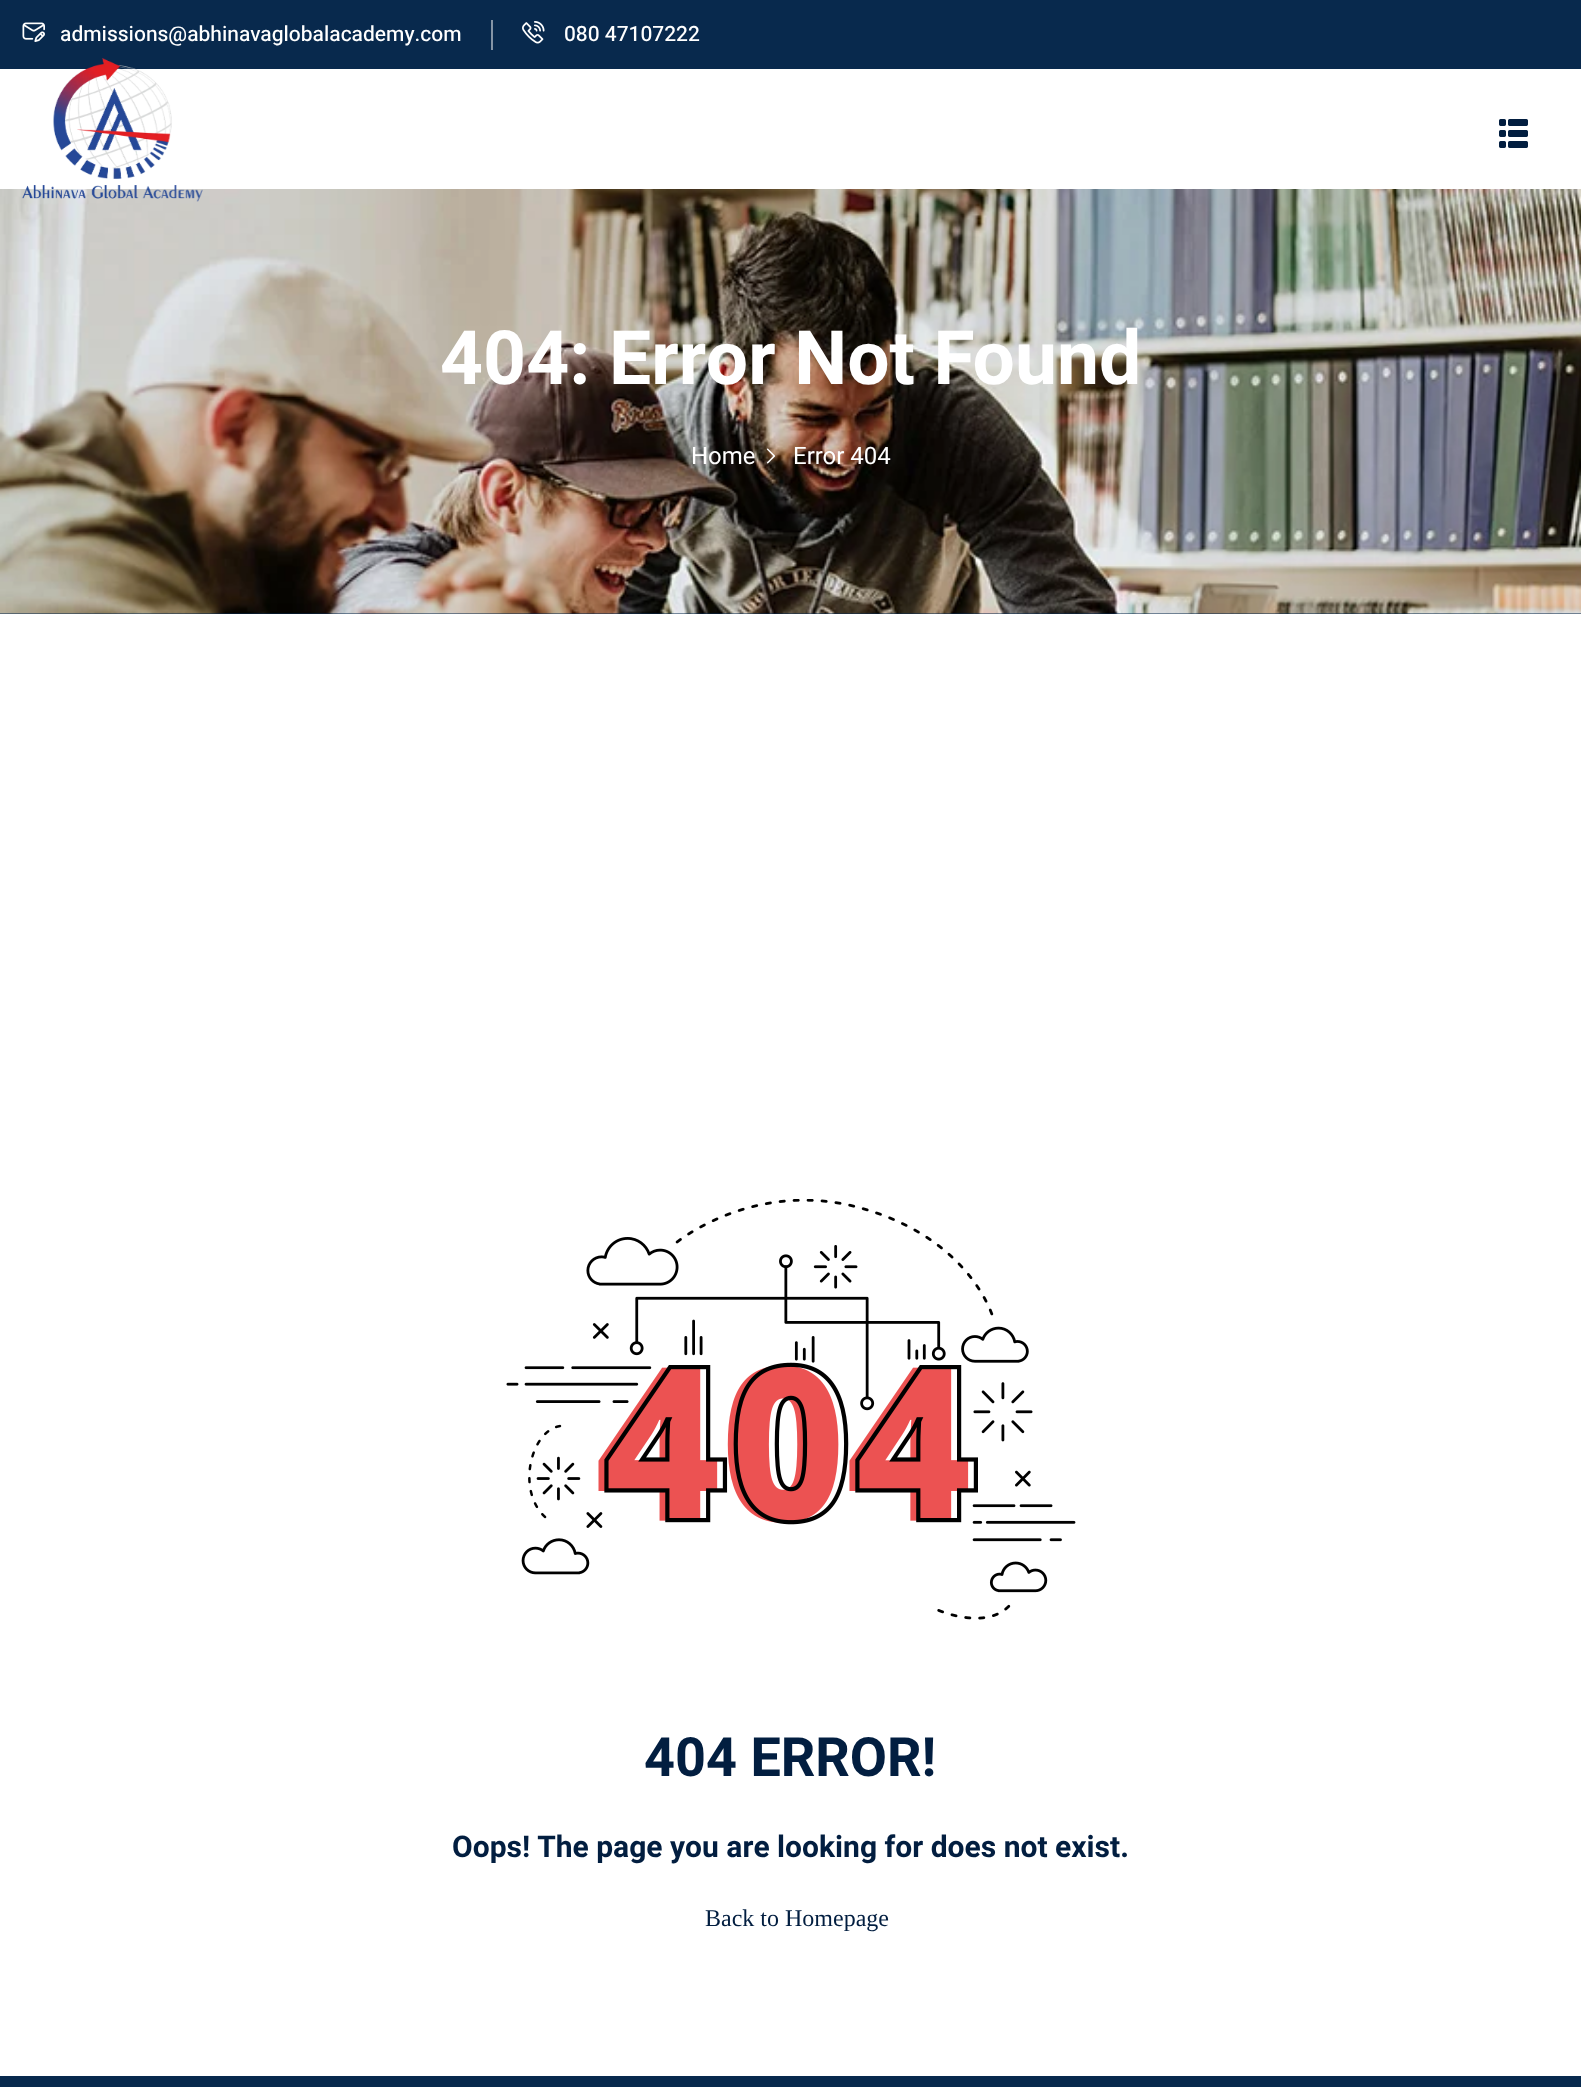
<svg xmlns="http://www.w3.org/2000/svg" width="1581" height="2087">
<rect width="100%" height="100%" fill="#fff"/>
<rect width="1581" height="69" fill="#08294d"/>
<image x="22" y="22" width="23" height="20" href="media/1.png"/>
<text x="60" y="41" style="font-family:Heebo;font-size:21px;font-weight:500;fill:#fff">admissions@abhinavaglobalacademy.com</text>
<rect x="491" y="20" width="2" height="30" fill="#8494a6"/>
<image x="522" y="21" width="23" height="23" href="media/2.png"/>
<text x="564" y="41" style="font-family:Heebo;font-size:21px;font-weight:500;fill:#fff">080 47107222</text>
<rect y="613" width="1581" height="1" fill="#07294d"/>
<image x="0" y="189" width="1581" height="425" href="media/5.png"/>
<image x="22" y="57" width="181" height="145" href="media/3.png"/>
<image x="1499" y="119" width="29" height="29" href="media/4.png"/>
<text x="440" y="384" style="font-family:Heebo;font-size:75px;font-weight:bold;fill:#fff">404: Error Not Found</text>
<text x="691" y="464" style="font-family:Heebo;font-size:24px;fill:#fff">Home</text>
<image x="766" y="448" width="10" height="16" href="media/6.png"/>
<text x="793" y="464" style="font-family:Heebo;font-size:24px;fill:#fff">Error 404</text>
<image x="506" y="1199" width="570" height="421" href="media/7.png"/>
<text x="644" y="1776" style="font-family:Heebo;font-size:54px;font-weight:bold;fill:#021e40">404 ERROR!</text>
<text x="452" y="1857" style="font-family:Heebo;font-size:30px;font-weight:bold;fill:#021e40">Oops! The page you are looking for does not exist.</text>
<text x="705" y="1926" style="font-family:Liberation Serif;font-size:24px;fill:#021e40">Back to Homepage</text>
<rect y="2076" width="1581" height="11" fill="#07294d"/>
</svg>
